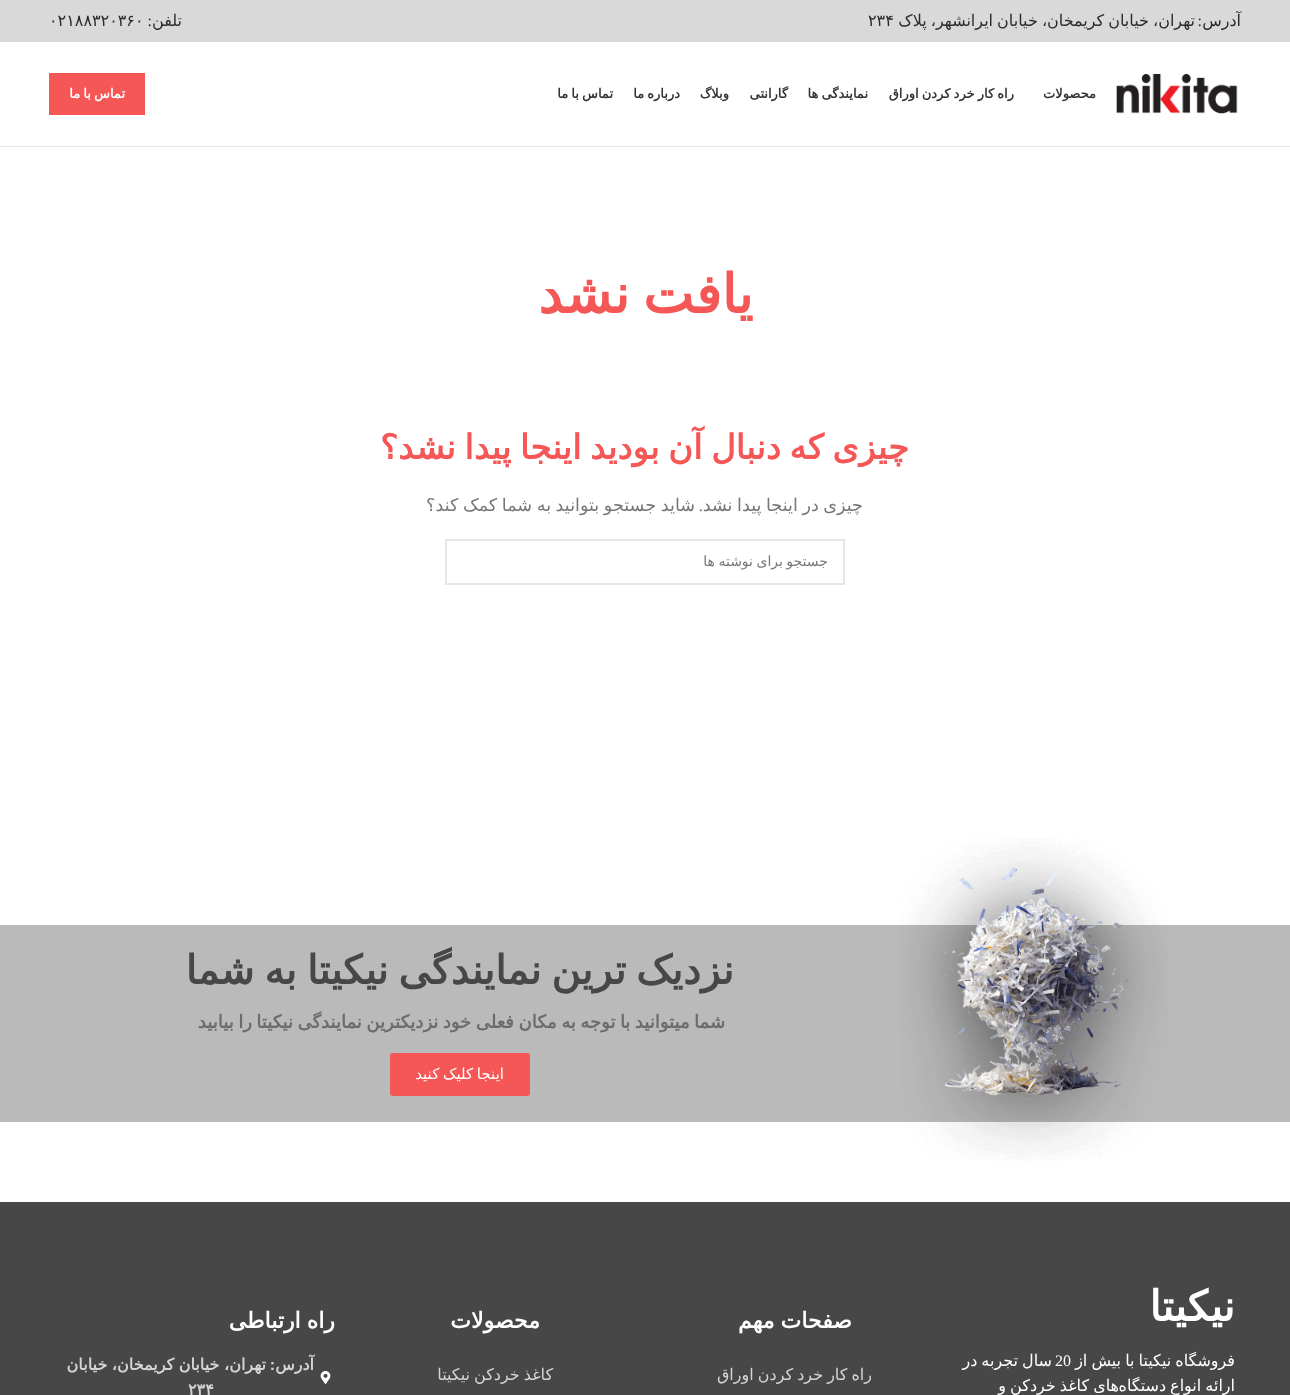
<svg xmlns="http://www.w3.org/2000/svg" width="1290" height="1395">
<rect width="100%" height="100%" fill="#fff"/>
<rect width="1290" height="42" fill="#d9d9d9"/>
<text x="1241" y="26" style="font-family:DejaVu Sans;font-size:16px;direction:rtl;fill:#2b2b2b">آدرس</text>
<text x="1202" y="26" style="font-family:Liberation Serif;font-size:16px;direction:rtl;fill:#2b2b2b">:</text>
<text x="1195" y="26" word-spacing="-1" style="font-family:DejaVu Sans;font-size:16px;direction:rtl;fill:#2b2b2b">تهران، خیابان کریمخان، خیابان ایرانشهر، پلاک</text>
<text x="868" y="26" style="font-family:DejaVu Sans;font-size:16px;fill:#2b2b2b">۲۳۴</text>
<text x="182" y="26" style="font-family:DejaVu Sans;font-size:16px;direction:rtl;fill:#2b2b2b">تلفن</text>
<text x="152" y="26" style="font-family:Liberation Serif;font-size:16px;direction:rtl;fill:#2b2b2b">:</text>
<text x="49" y="26" style="font-family:DejaVu Sans;font-size:16px;fill:#2b2b2b">۰۲۱۸۸۳۲۰۳۶۰</text>
<rect y="146" width="1290" height="1" fill="#e6e6e6"/>
<image x="1116" y="74" width="122" height="40" href="media/1.png"/>
<text x="1096" y="98" style="font-family:DejaVu Sans;font-size:13px;font-weight:bold;direction:rtl;fill:#333">محصولات</text>
<text x="1014" y="98" word-spacing="-1" style="font-family:DejaVu Sans;font-size:13px;font-weight:bold;direction:rtl;fill:#333">راه کار خرد کردن اوراق</text>
<text x="868" y="98" word-spacing="-1" style="font-family:DejaVu Sans;font-size:13px;font-weight:bold;direction:rtl;fill:#333">نمایندگی ها</text>
<text x="788" y="98" style="font-family:DejaVu Sans;font-size:13px;font-weight:bold;direction:rtl;fill:#333">گارانتی</text>
<text x="729" y="98" style="font-family:DejaVu Sans;font-size:13px;font-weight:bold;direction:rtl;fill:#333">وبلاگ</text>
<text x="680" y="98" word-spacing="-1" style="font-family:DejaVu Sans;font-size:13px;font-weight:bold;direction:rtl;fill:#333">درباره ما</text>
<text x="613" y="98" word-spacing="-1" style="font-family:DejaVu Sans;font-size:13px;font-weight:bold;direction:rtl;fill:#333">تماس با ما</text>
<rect x="49" y="73" width="96" height="42" fill="#f55757"/>
<text x="125" y="98" word-spacing="-1" style="font-family:DejaVu Sans;font-size:13px;font-weight:bold;direction:rtl;fill:#fff">تماس با ما</text>
<text x="753" y="313" word-spacing="-4" style="font-family:DejaVu Sans;font-size:54px;font-weight:bold;direction:rtl;fill:#f55757">یافت نشد</text>
<text x="909" y="459" word-spacing="-2.25" style="font-family:DejaVu Sans;font-size:34px;font-weight:bold;direction:rtl;fill:#f55757">چیزی که دنبال آن بودید اینجا پیدا نشد؟</text>
<text x="863" y="511" word-spacing="-1" style="font-family:DejaVu Sans;font-size:17.6px;direction:rtl;fill:#777">چیزی در اینجا پیدا نشد</text>
<text x="703" y="511" style="font-family:Liberation Serif;font-size:17.6px;direction:rtl;fill:#777">.</text>
<text x="695" y="511" word-spacing="-1" style="font-family:DejaVu Sans;font-size:17.6px;direction:rtl;fill:#777">شاید جستجو بتوانید به شما کمک کند؟</text>
<rect x="446" y="540" width="398" height="44" fill="none" stroke="#e6e6e6" stroke-width="2"/>
<text x="828" y="566" word-spacing="-1" style="font-family:DejaVu Sans;font-size:14px;direction:rtl;fill:#777">جستجو برای نوشته ها</text>
<rect y="925" width="1290" height="197" fill="#bababa"/>
<image x="899" y="838" width="269" height="323" href="media/2.png"/>
<text x="734" y="984" word-spacing="-2.75" style="font-family:DejaVu Sans;font-size:40px;font-weight:bold;direction:rtl;fill:#474747">نزدیک ترین نمایندگی نیکیتا به شما</text>
<text x="725" y="1028" word-spacing="-1.25" style="font-family:DejaVu Sans;font-size:18px;font-weight:bold;direction:rtl;fill:#6c6c6c">شما میتوانید با توجه به مکان فعلی خود نزدیکترین نمایندگی نیکیتا را بیابید</text>
<rect x="391" y="1054" width="138" height="41" rx="2" fill="#f55757" stroke="#f55757" stroke-width="2"/>
<text x="504" y="1079" word-spacing="-1" style="font-family:DejaVu Sans;font-size:15px;direction:rtl;fill:#fff">اینجا کلیک کنید</text>
<rect y="1202" width="1290" height="193" fill="#474747"/>
<text x="1235" y="1321" style="font-family:DejaVu Sans;font-size:42px;font-weight:bold;direction:rtl;fill:#fff">نیکیتا</text>
<text x="1235" y="1366" word-spacing="-1" style="font-family:DejaVu Sans;font-size:16px;direction:rtl;fill:#fff">فروشگاه نیکیتا با بیش از</text>
<text x="1055" y="1366" style="font-family:Liberation Serif;font-size:16px;fill:#fff">20</text>
<text x="1052" y="1366" word-spacing="-1" style="font-family:DejaVu Sans;font-size:16px;direction:rtl;fill:#fff">سال تجربه در</text>
<text x="1235" y="1391" word-spacing="-1" style="font-family:DejaVu Sans;font-size:16px;direction:rtl;fill:#fff">ارائه انواع دستگاه</text>
<text x="1119" y="1391" word-spacing="-1" style="font-family:DejaVu Sans;font-size:16px;direction:rtl;fill:#fff">های کاغذ خردکن و</text>
<text x="852" y="1328" word-spacing="-1" style="font-family:DejaVu Sans;font-size:22px;font-weight:bold;direction:rtl;fill:#fff">صفحات مهم</text>
<text x="872" y="1380" word-spacing="-1" style="font-family:DejaVu Sans;font-size:16px;direction:rtl;fill:#d5d5d5">راه کار خرد کردن اوراق</text>
<text x="540" y="1328" style="font-family:DejaVu Sans;font-size:22px;font-weight:bold;direction:rtl;fill:#fff">محصولات</text>
<text x="553" y="1380" word-spacing="-1" style="font-family:DejaVu Sans;font-size:16px;direction:rtl;fill:#d5d5d5">کاغذ خردکن نیکیتا</text>
<text x="335" y="1328" word-spacing="-1" style="font-family:DejaVu Sans;font-size:22px;font-weight:bold;direction:rtl;fill:#fff">راه ارتباطی</text>
<image x="320" y="1371" width="11" height="13" href="media/3.png"/>
<text x="314" y="1370" style="font-family:DejaVu Sans;font-size:16px;font-weight:bold;direction:rtl;fill:#d5d5d5">آدرس</text>
<text x="275" y="1370" style="font-family:Liberation Sans;font-size:16px;font-weight:bold;direction:rtl;fill:#d5d5d5">:</text>
<text x="266" y="1370" word-spacing="-0.5" style="font-family:DejaVu Sans;font-size:16px;font-weight:bold;direction:rtl;fill:#d5d5d5">تهران، خیابان کریمخان، خیابان</text>
<text x="188" y="1395" style="font-family:DejaVu Sans;font-size:16px;font-weight:bold;fill:#d5d5d5">۲۳۴</text>
</svg>
